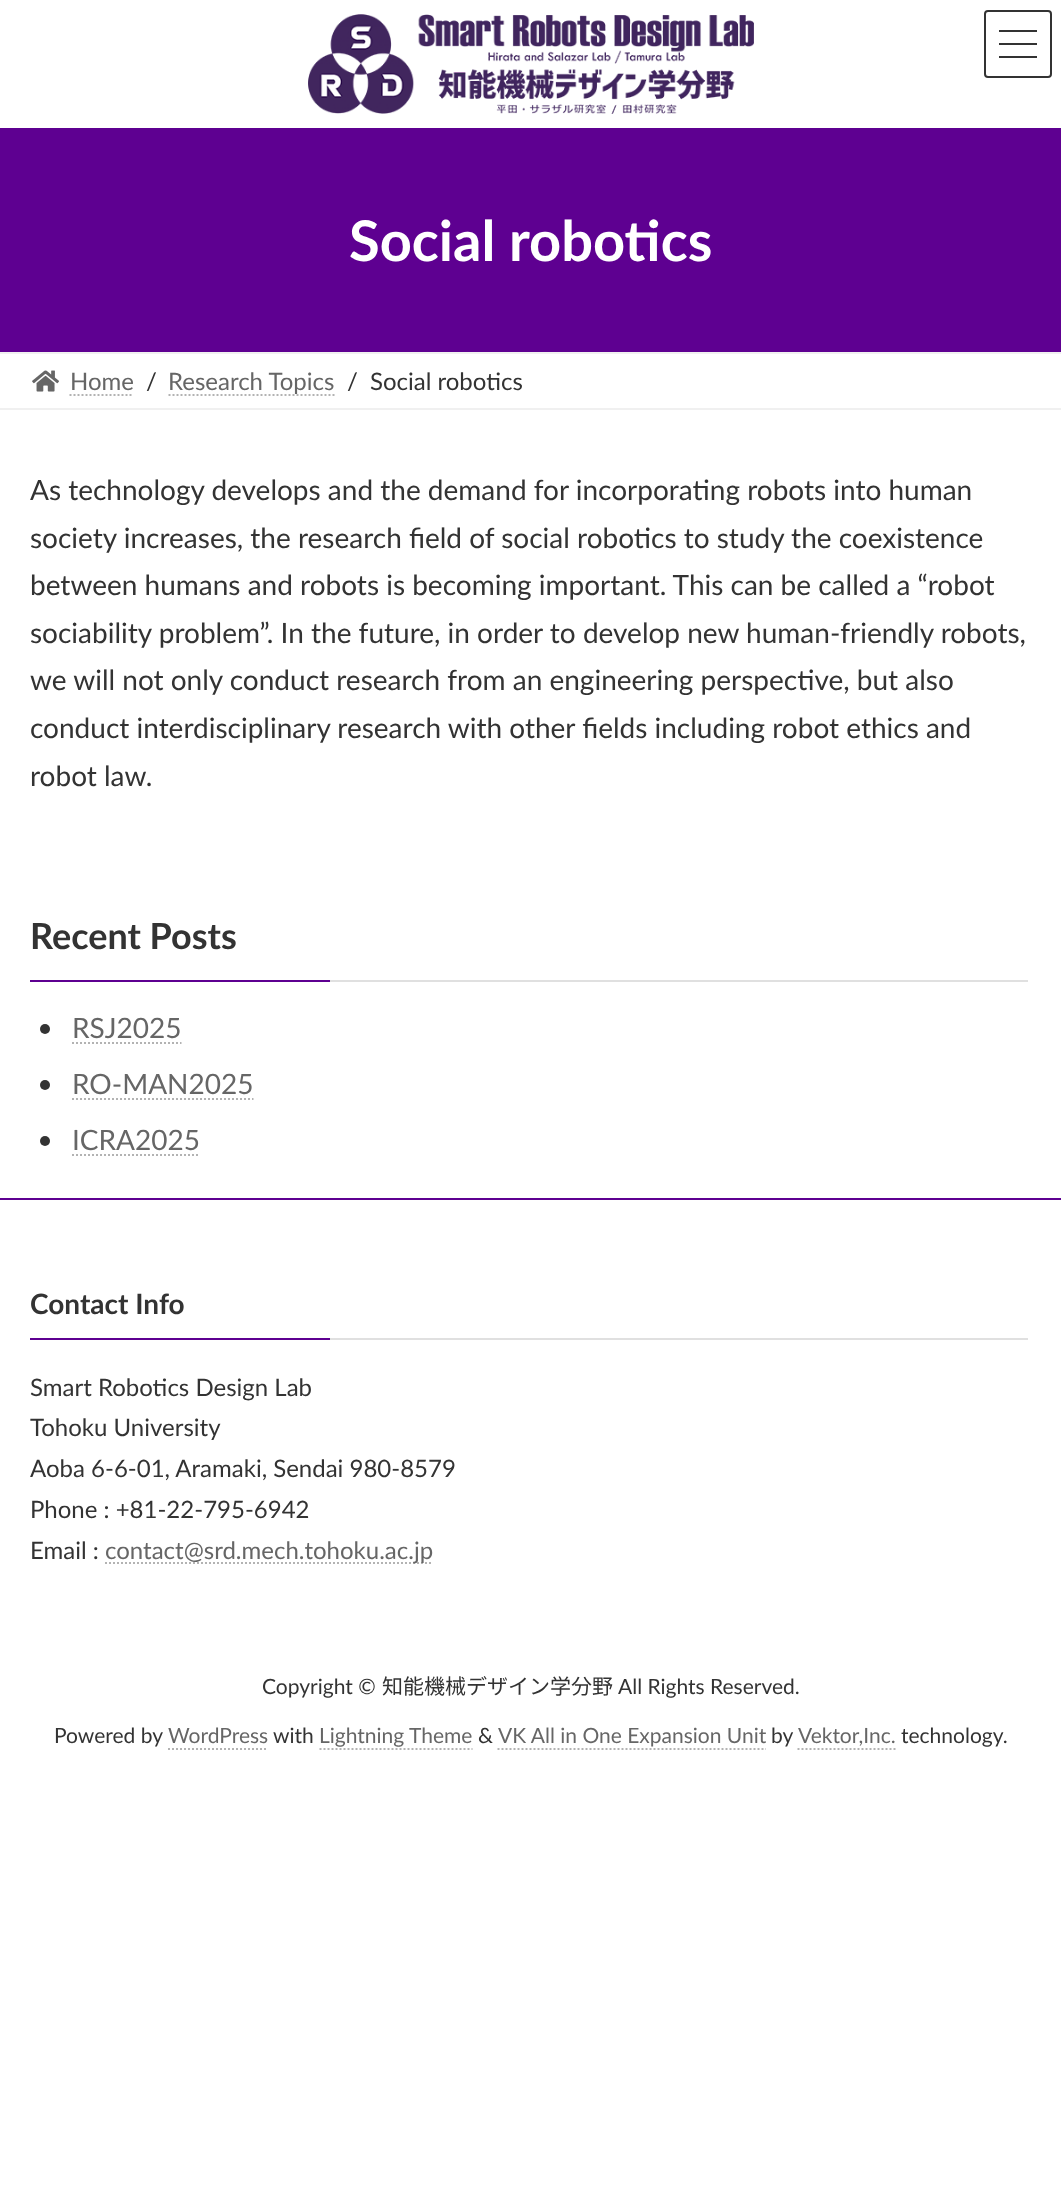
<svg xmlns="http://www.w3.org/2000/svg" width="1061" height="2212">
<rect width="100%" height="100%" fill="#fff"/>
<image x="308" y="14" width="446" height="100" href="media/1.png"/>
<rect x="999" y="30" width="38" height="2" fill="#333"/>
<rect x="999" y="43" width="38" height="2" fill="#333"/>
<rect x="999" y="56" width="38" height="2" fill="#333"/>
<rect x="985" y="11" width="66" height="66" rx="3" fill="none" stroke="#333" stroke-width="2"/>
<rect y="128" width="1061" height="224" fill="#5e0091"/>
<text x="349" y="261" style="font-family:Lato;font-size:56px;font-weight:bold;fill:#fff">Social robotics</text>
<rect y="352" width="1061" height="2" fill="#f0f0f0"/>
<rect y="408" width="1061" height="2" fill="#f0f0f0"/>
<image x="32" y="370" width="27" height="22" href="media/2.png"/>
<text x="70" y="390" style="font-family:Lato;font-size:24px;fill:#666">Home</text>
<path d="M69.5 395h64" fill="none" stroke="#b3b3b3" stroke-width="2" stroke-dasharray="2 2"/>
<text x="146" y="390" style="font-family:Lato;font-size:24px;fill:#333">/</text>
<path d="M168.5 395h166.5" fill="none" stroke="#b3b3b3" stroke-width="2" stroke-dasharray="2 2"/>
<text x="168" y="390" style="font-family:Lato;font-size:24px;fill:#666">Research Topics</text>
<text x="347" y="390" style="font-family:Lato;font-size:24px;fill:#333">/</text>
<text x="370" y="390" style="font-family:Lato;font-size:24px;fill:#333">Social robotics</text>
<text x="30" y="500" style="font-family:Lato;font-size:28px;fill:#333">As technology develops and the demand for incorporating robots into human</text>
<text x="30" y="548" style="font-family:Lato;font-size:28px;fill:#333">society increases, the research field of social robotics to study the coexistence</text>
<text x="30" y="595" style="font-family:Lato;font-size:28px;fill:#333">between humans and robots is becoming important. This can be called a “robot</text>
<text x="30" y="643" style="font-family:Lato;font-size:28px;fill:#333">sociability problem”. In the future, in order to develop new human-friendly robots,</text>
<text x="30" y="690" style="font-family:Lato;font-size:28px;fill:#333">we will not only conduct research from an engineering perspective, but also</text>
<text x="30" y="738" style="font-family:Lato;font-size:28px;fill:#333">conduct interdisciplinary research with other fields including robot ethics and</text>
<text x="30" y="786" style="font-family:Lato;font-size:28px;fill:#333">robot law.</text>
<rect x="330" y="980" width="698" height="2" fill="#e0e0e0"/>
<text x="30" y="949" style="font-family:Lato;font-size:36px;font-weight:bold;fill:#333">Recent Posts</text>
<rect x="30" y="980" width="300" height="2" fill="#5e0091"/>
<circle cx="45" cy="1029" r="5" fill="#333"/>
<text x="72" y="1038" style="font-family:Lato;font-size:28px;fill:#666">RSJ2025</text>
<path d="M72 1043h109.5" fill="none" stroke="#b3b3b3" stroke-width="2" stroke-dasharray="2 2"/>
<circle cx="45" cy="1085" r="5" fill="#333"/>
<text x="72" y="1094" style="font-family:Lato;font-size:28px;fill:#666">RO-MAN2025</text>
<path d="M72 1099h181.5" fill="none" stroke="#b3b3b3" stroke-width="2" stroke-dasharray="2 2"/>
<circle cx="45" cy="1141" r="5" fill="#333"/>
<text x="72" y="1150" style="font-family:Lato;font-size:28px;fill:#666">ICRA2025</text>
<path d="M72 1155h128" fill="none" stroke="#b3b3b3" stroke-width="2" stroke-dasharray="2 2"/>
<rect y="1198" width="1061" height="2" fill="#5e0091"/>
<rect x="330" y="1338" width="698" height="2" fill="#e0e0e0"/>
<text x="30" y="1314" style="font-family:Lato;font-size:28px;font-weight:bold;fill:#333">Contact Info</text>
<rect x="30" y="1338" width="300" height="2" fill="#5e0091"/>
<text x="30" y="1396" style="font-family:Lato;font-size:24px;fill:#333">Smart Robotics Design Lab</text>
<text x="30" y="1436" style="font-family:Lato;font-size:24px;fill:#333">Tohoku University</text>
<text x="30" y="1477" style="font-family:Lato;font-size:24px;fill:#333">Aoba 6-6-01, Aramaki, Sendai 980-8579</text>
<text x="30" y="1518" style="font-family:Lato;font-size:24px;fill:#333">Phone : +81-22-795-6942</text>
<text x="30" y="1559" style="font-family:Lato;font-size:24px;fill:#333">Email :</text>
<path d="M105 1563h328" fill="none" stroke="#b3b3b3" stroke-width="2" stroke-dasharray="2 2"/>
<text x="105" y="1559" style="font-family:Lato;font-size:24px;fill:#666">contact@srd.mech.tohoku.ac.jp</text>
<text x="262" y="1694" style="font-family:Lato;font-size:21px;fill:#333">Copyright ©</text>
<text x="382" y="1694" style="font-family:Noto Sans JP;font-size:21px;fill:#333">知能機械デザイン学分野</text>
<text x="618" y="1694" style="font-family:Lato;font-size:21px;fill:#333">All Rights Reserved.</text>
<text x="54" y="1743" style="font-family:Lato;font-size:21px;fill:#333">Powered by</text>
<text x="168" y="1743" style="font-family:Lato;font-size:21px;fill:#666">WordPress</text>
<path d="M168 1749h100" fill="none" stroke="#b3b3b3" stroke-width="2" stroke-dasharray="2 2"/>
<text x="273" y="1743" style="font-family:Lato;font-size:21px;fill:#333">with</text>
<text x="319" y="1743" style="font-family:Lato;font-size:21px;fill:#666">Lightning Theme</text>
<path d="M319.5 1749h153" fill="none" stroke="#b3b3b3" stroke-width="2" stroke-dasharray="2 2"/>
<text x="478" y="1743" style="font-family:Lato;font-size:21px;fill:#333">&amp;</text>
<text x="498" y="1743" style="font-family:Lato;font-size:21px;fill:#666">VK All in One Expansion Unit</text>
<path d="M497.5 1749h268.5" fill="none" stroke="#b3b3b3" stroke-width="2" stroke-dasharray="2 2"/>
<text x="771" y="1743" style="font-family:Lato;font-size:21px;fill:#333">by</text>
<text x="798" y="1743" style="font-family:Lato;font-size:21px;fill:#666">Vektor,Inc.</text>
<path d="M797.5 1749h98" fill="none" stroke="#b3b3b3" stroke-width="2" stroke-dasharray="2 2"/>
<text x="901" y="1743" style="font-family:Lato;font-size:21px;fill:#333">technology.</text>
</svg>
